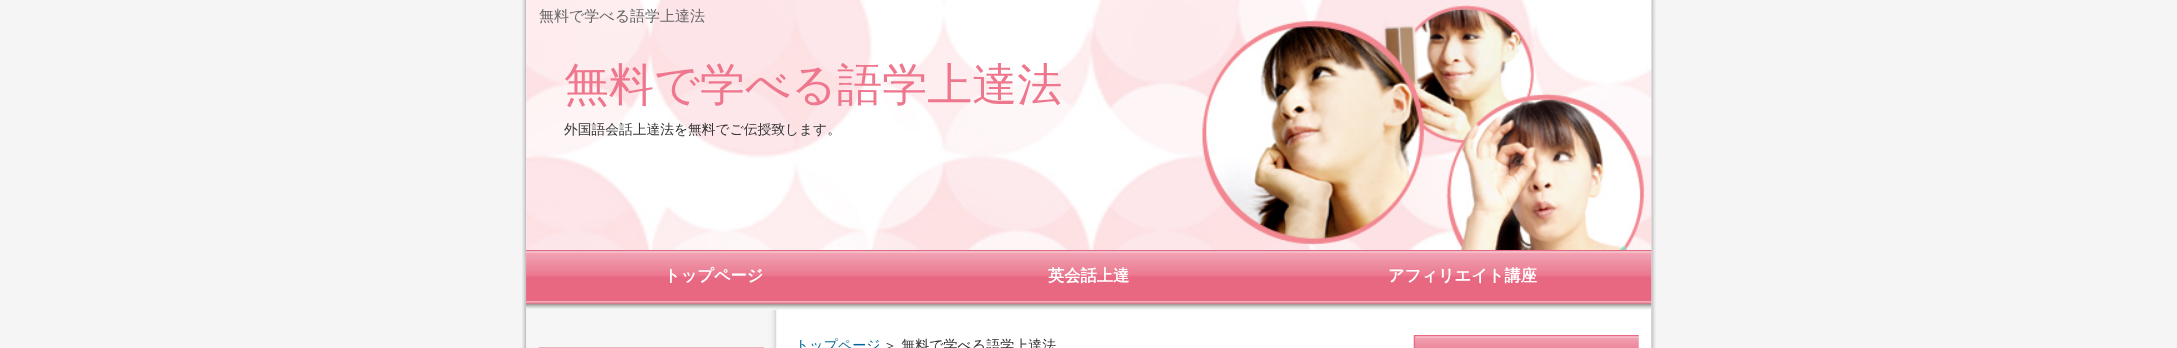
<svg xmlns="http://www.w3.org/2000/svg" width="2177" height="348">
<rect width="100%" height="100%" fill="#f5f5f5"/>
<image x="522" y="0" width="1134" height="348" href="media/1.png"/>
<image x="526" y="0" width="1126" height="250" href="media/2.png"/>
<text x="539" y="21" style="font-family:WenQuanYi Zen Hei;font-size:15px;font-weight:500;fill:#666">無料で学べる語学上達法</text>
<text x="564" y="100" style="font-family:WenQuanYi Zen Hei;font-size:45px;font-weight:500;fill:#ee778e">無料で学べる語学上達法</text>
<text x="564" y="134" style="font-family:WenQuanYi Zen Hei;font-size:13.75px;font-weight:500;fill:#333">外国語会話上達法を無料でご伝授致します。</text>
<image x="526" y="250" width="1126" height="60" href="media/3.png"/>
<image x="526" y="250" width="1" height="57" href="media/4.png"/>
<text x="664" y="281" style="font-family:WenQuanYi Zen Hei;font-size:16.25px;font-weight:bold;fill:#fff">トップページ</text>
<text x="1048" y="281" style="font-family:WenQuanYi Zen Hei;font-size:16.25px;font-weight:bold;fill:#fff">英会話上達</text>
<text x="1388" y="281" style="font-family:WenQuanYi Zen Hei;font-size:16.25px;font-weight:bold;fill:#fff">アフィリエイト講座</text>
<image x="526" y="310" width="251" height="38" href="media/5.png"/>
<image x="538" y="347" width="226" height="1" href="media/6.png"/>
<text x="795" y="350" style="font-family:WenQuanYi Zen Hei;font-size:14px;font-weight:500;fill:#069">トップページ</text>
<text x="883" y="350" style="font-family:WenQuanYi Zen Hei;font-size:14px;font-weight:500;fill:#333">＞ 無料で学べる語学上達法</text>
<image x="1413" y="335" width="226" height="13" href="media/7.png"/>
</svg>
